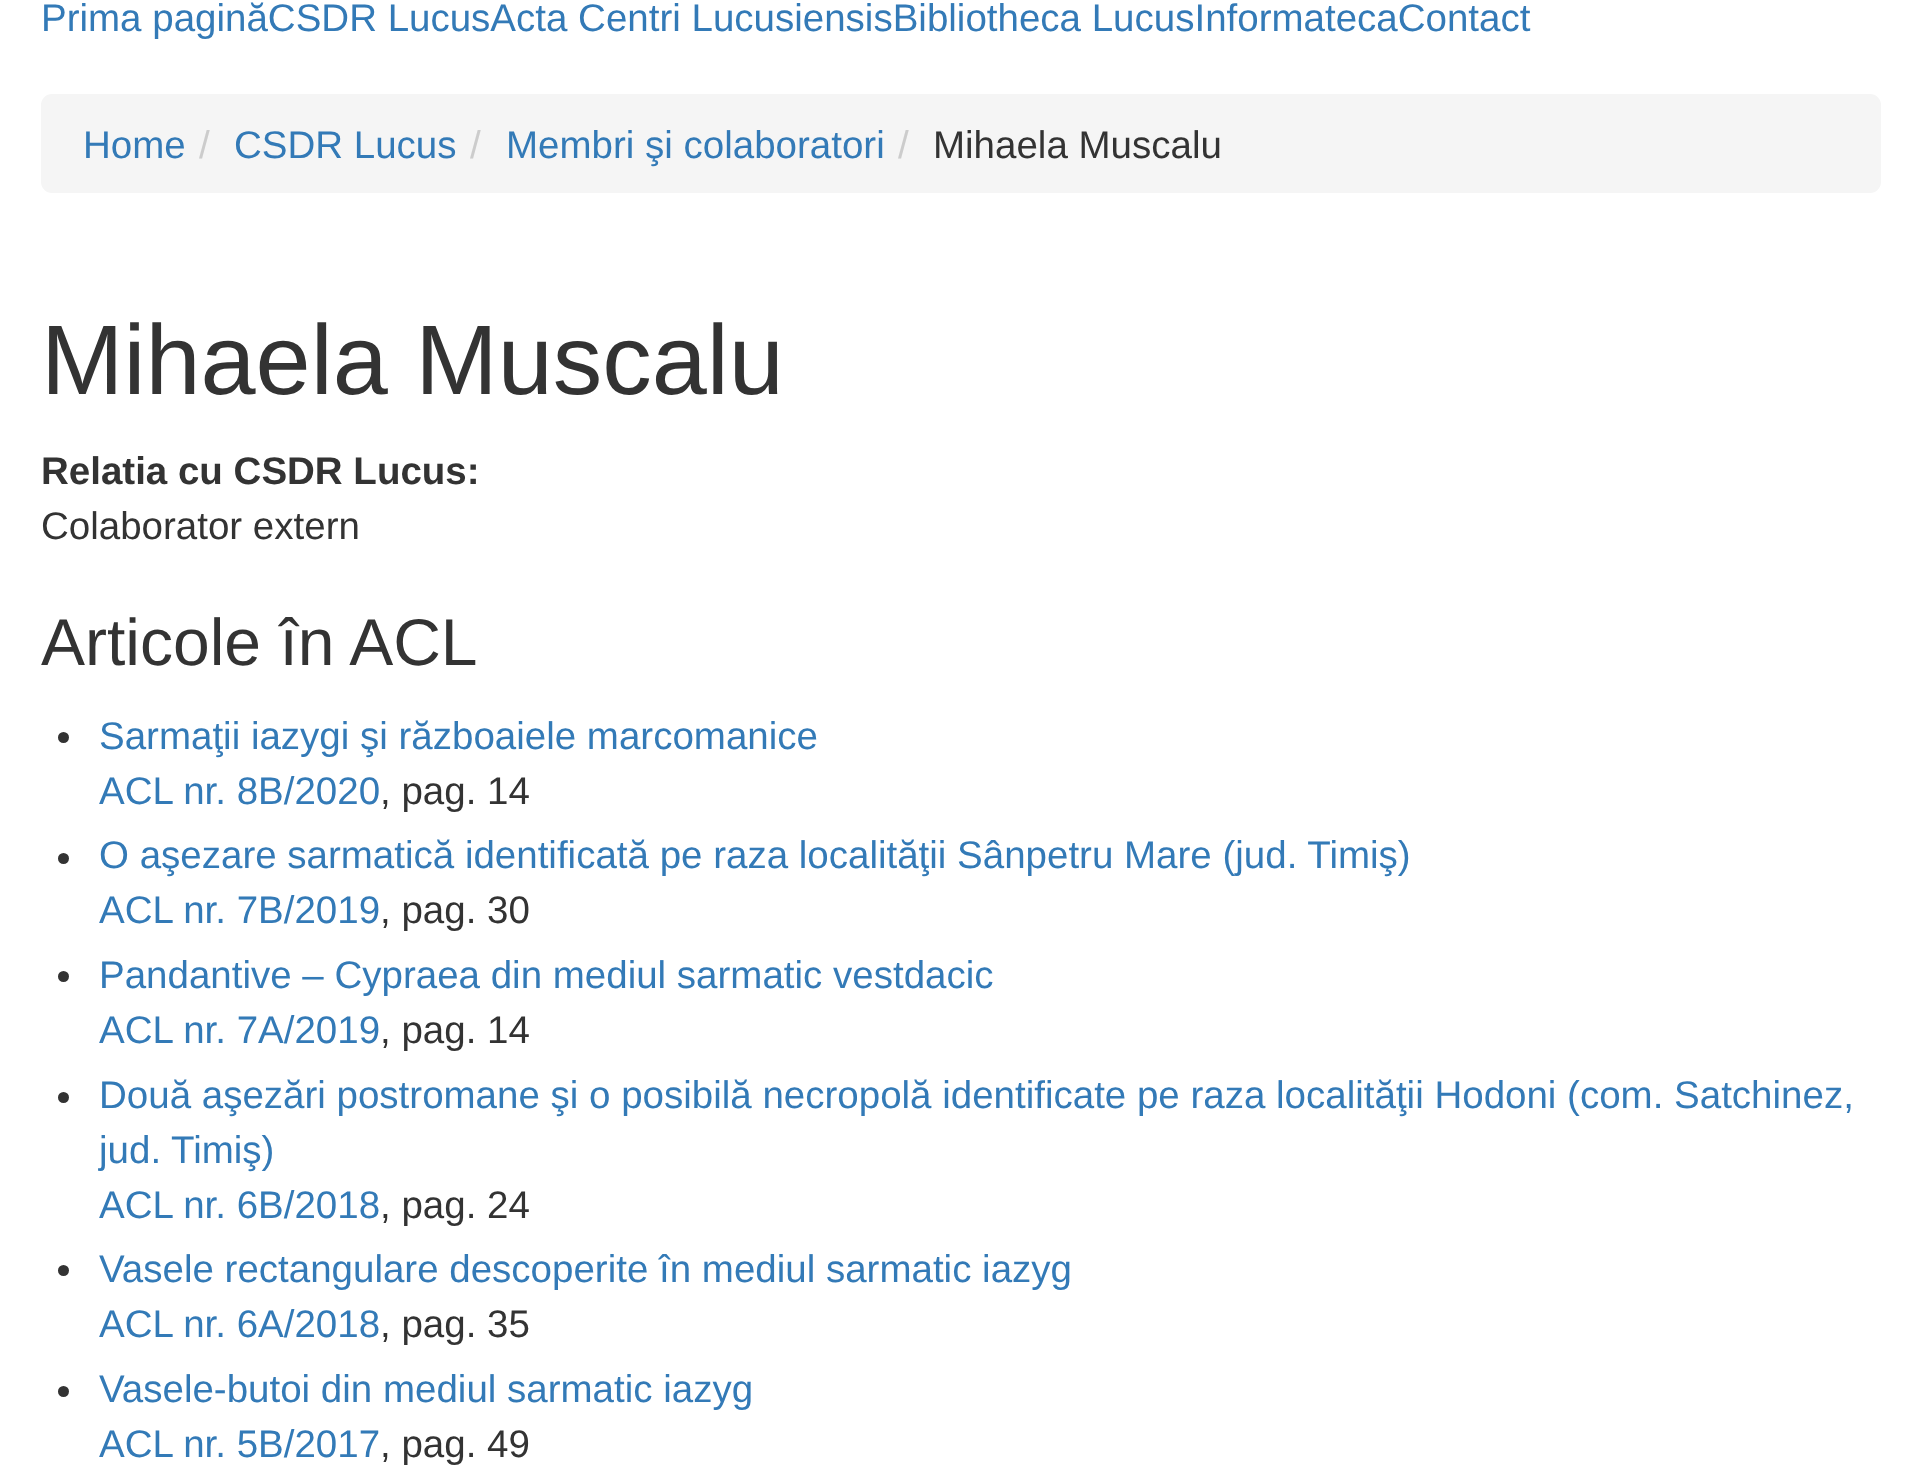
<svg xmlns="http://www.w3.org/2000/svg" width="1920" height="1484">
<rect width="100%" height="100%" fill="#fff"/>
<text x="41" y="31" style="font-family:Liberation Sans;font-size:38.5px;fill:#337ab7">Prima paginăCSDR LucusActa Centri LucusiensisBibliotheca LucusInformatecaContact</text>
<rect x="41" y="94" width="1840" height="99" rx="11" fill="#f5f5f5"/>
<text x="83" y="158" style="font-family:Liberation Sans;font-size:38.5px;fill:#337ab7">Home</text>
<text x="199" y="158" style="font-family:Liberation Sans;font-size:38.5px;fill:#ccc">/</text>
<text x="234" y="158" style="font-family:Liberation Sans;font-size:38.5px;fill:#337ab7">CSDR Lucus</text>
<text x="470" y="158" style="font-family:Liberation Sans;font-size:38.5px;fill:#ccc">/</text>
<text x="506" y="158" style="font-family:Liberation Sans;font-size:38.5px;fill:#337ab7">Membri şi colaboratori</text>
<text x="898" y="158" style="font-family:Liberation Sans;font-size:38.5px;fill:#ccc">/</text>
<text x="933" y="158" style="font-family:Liberation Sans;font-size:38.5px;fill:#333">Mihaela Muscalu</text>
<text x="41" y="394" style="font-family:Liberation Sans;font-size:99px;fill:#333">Mihaela Muscalu</text>
<text x="41" y="484" style="font-family:Liberation Sans;font-size:38.5px;font-weight:bold;fill:#333">Relatia cu CSDR Lucus:</text>
<text x="41" y="539" style="font-family:Liberation Sans;font-size:38.5px;fill:#333">Colaborator extern</text>
<text x="41" y="665" style="font-family:Liberation Sans;font-size:66px;fill:#333">Articole în ACL</text>
<circle cx="63.5" cy="737.5" r="5.5" fill="#333"/>
<text x="99" y="749" style="font-family:Liberation Sans;font-size:38.5px;fill:#337ab7">Sarmaţii iazygi şi războaiele marcomanice</text>
<text x="99" y="804" style="font-family:Liberation Sans;font-size:38.5px;fill:#337ab7">ACL nr. 8B/2020</text>
<text x="380" y="804" style="font-family:Liberation Sans;font-size:38.5px;fill:#333">, pag. 14</text>
<circle cx="63.5" cy="858.5" r="5.5" fill="#333"/>
<text x="99" y="868" style="font-family:Liberation Sans;font-size:38.5px;fill:#337ab7">O aşezare sarmatică identificată pe raza localităţii Sânpetru Mare (jud. Timiş)</text>
<text x="99" y="923" style="font-family:Liberation Sans;font-size:38.5px;fill:#337ab7">ACL nr. 7B/2019</text>
<text x="380" y="923" style="font-family:Liberation Sans;font-size:38.5px;fill:#333">, pag. 30</text>
<circle cx="63.5" cy="976.5" r="5.5" fill="#333"/>
<text x="99" y="988" style="font-family:Liberation Sans;font-size:38.5px;fill:#337ab7">Pandantive – Cypraea din mediul sarmatic vestdacic</text>
<text x="99" y="1043" style="font-family:Liberation Sans;font-size:38.5px;fill:#337ab7">ACL nr. 7A/2019</text>
<text x="380" y="1043" style="font-family:Liberation Sans;font-size:38.5px;fill:#333">, pag. 14</text>
<circle cx="63.5" cy="1097.5" r="5.5" fill="#333"/>
<text x="99" y="1108" style="font-family:Liberation Sans;font-size:38.5px;fill:#337ab7">Două aşezări postromane şi o posibilă necropolă identificate pe raza localităţii Hodoni (com. Satchinez,</text>
<text x="99" y="1163" style="font-family:Liberation Sans;font-size:38.5px;fill:#337ab7">jud. Timiş)</text>
<text x="99" y="1218" style="font-family:Liberation Sans;font-size:38.5px;fill:#337ab7">ACL nr. 6B/2018</text>
<text x="380" y="1218" style="font-family:Liberation Sans;font-size:38.5px;fill:#333">, pag. 24</text>
<circle cx="63.5" cy="1270.5" r="5.5" fill="#333"/>
<text x="99" y="1282" style="font-family:Liberation Sans;font-size:38.5px;fill:#337ab7">Vasele rectangulare descoperite în mediul sarmatic iazyg</text>
<text x="99" y="1337" style="font-family:Liberation Sans;font-size:38.5px;fill:#337ab7">ACL nr. 6A/2018</text>
<text x="380" y="1337" style="font-family:Liberation Sans;font-size:38.5px;fill:#333">, pag. 35</text>
<circle cx="63.5" cy="1391.5" r="5.5" fill="#333"/>
<text x="99" y="1402" style="font-family:Liberation Sans;font-size:38.5px;fill:#337ab7">Vasele-butoi din mediul sarmatic iazyg</text>
<text x="99" y="1457" style="font-family:Liberation Sans;font-size:38.5px;fill:#337ab7">ACL nr. 5B/2017</text>
<text x="380" y="1457" style="font-family:Liberation Sans;font-size:38.5px;fill:#333">, pag. 49</text>
</svg>
